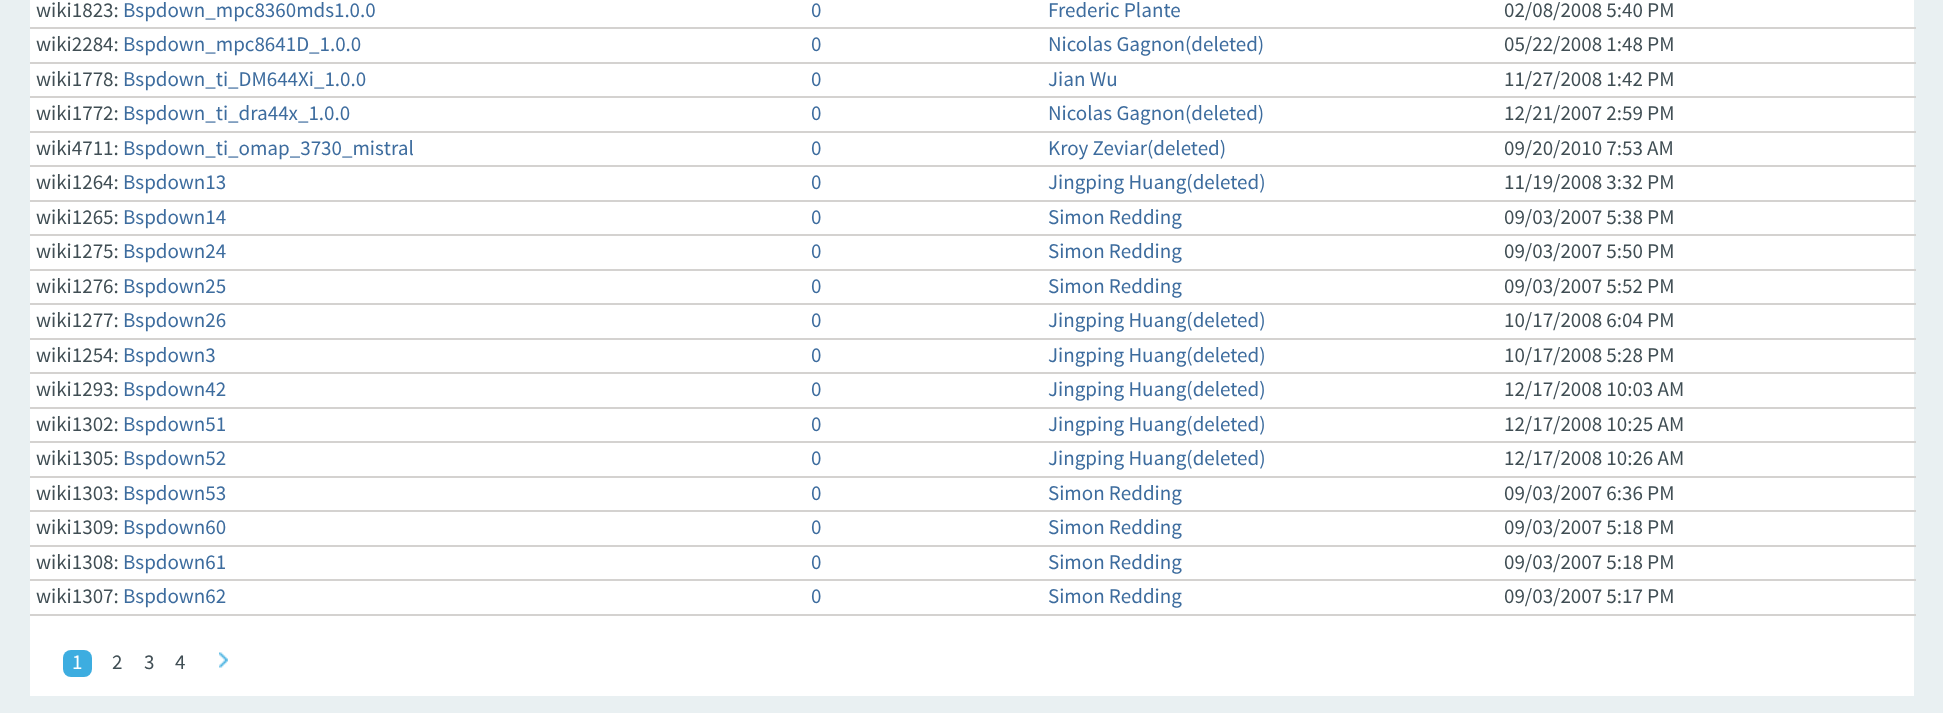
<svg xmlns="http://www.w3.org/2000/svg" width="1943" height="713">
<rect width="100%" height="100%" fill="#e9f0f2"/>
<rect x="30" width="1884" height="696" fill="#fff"/>
<text x="36" y="17" style="font-family:Source Sans Pro;font-size:21px;fill:#404e54">wiki1823:</text>
<text x="123" y="17" style="font-family:Source Sans Pro;font-size:21px;fill:#3d6c9e">Bspdown_mpc8360mds1.0.0</text>
<text x="811" y="17" style="font-family:Source Sans Pro;font-size:21px;fill:#3d6c9e">0</text>
<text x="1048" y="17" style="font-family:Source Sans Pro;font-size:21px;fill:#3d6c9e">Frederic Plante</text>
<text x="1504" y="17" style="font-family:Source Sans Pro;font-size:21px;fill:#404e54">02/08/2008 5:40 PM</text>
<rect x="30" y="27" width="1886" height="2" fill="#d4d2d0"/>
<text x="36" y="51" style="font-family:Source Sans Pro;font-size:21px;fill:#404e54">wiki2284:</text>
<text x="123" y="51" style="font-family:Source Sans Pro;font-size:21px;fill:#3d6c9e">Bspdown_mpc8641D_1.0.0</text>
<text x="811" y="51" style="font-family:Source Sans Pro;font-size:21px;fill:#3d6c9e">0</text>
<text x="1048" y="51" style="font-family:Source Sans Pro;font-size:21px;fill:#3d6c9e">Nicolas Gagnon(deleted)</text>
<text x="1504" y="51" style="font-family:Source Sans Pro;font-size:21px;fill:#404e54">05/22/2008 1:48 PM</text>
<rect x="30" y="62" width="1886" height="2" fill="#d4d2d0"/>
<text x="36" y="86" style="font-family:Source Sans Pro;font-size:21px;fill:#404e54">wiki1778:</text>
<text x="123" y="86" style="font-family:Source Sans Pro;font-size:21px;fill:#3d6c9e">Bspdown_ti_DM644Xi_1.0.0</text>
<text x="811" y="86" style="font-family:Source Sans Pro;font-size:21px;fill:#3d6c9e">0</text>
<text x="1048" y="86" style="font-family:Source Sans Pro;font-size:21px;fill:#3d6c9e">Jian Wu</text>
<text x="1504" y="86" style="font-family:Source Sans Pro;font-size:21px;fill:#404e54">11/27/2008 1:42 PM</text>
<rect x="30" y="96" width="1886" height="2" fill="#d4d2d0"/>
<text x="36" y="120" style="font-family:Source Sans Pro;font-size:21px;fill:#404e54">wiki1772:</text>
<text x="123" y="120" style="font-family:Source Sans Pro;font-size:21px;fill:#3d6c9e">Bspdown_ti_dra44x_1.0.0</text>
<text x="811" y="120" style="font-family:Source Sans Pro;font-size:21px;fill:#3d6c9e">0</text>
<text x="1048" y="120" style="font-family:Source Sans Pro;font-size:21px;fill:#3d6c9e">Nicolas Gagnon(deleted)</text>
<text x="1504" y="120" style="font-family:Source Sans Pro;font-size:21px;fill:#404e54">12/21/2007 2:59 PM</text>
<rect x="30" y="131" width="1886" height="2" fill="#d4d2d0"/>
<text x="36" y="155" style="font-family:Source Sans Pro;font-size:21px;fill:#404e54">wiki4711:</text>
<text x="123" y="155" style="font-family:Source Sans Pro;font-size:21px;fill:#3d6c9e">Bspdown_ti_omap_3730_mistral</text>
<text x="811" y="155" style="font-family:Source Sans Pro;font-size:21px;fill:#3d6c9e">0</text>
<text x="1048" y="155" style="font-family:Source Sans Pro;font-size:21px;fill:#3d6c9e">Kroy Zeviar(deleted)</text>
<text x="1504" y="155" style="font-family:Source Sans Pro;font-size:21px;fill:#404e54">09/20/2010 7:53 AM</text>
<rect x="30" y="165" width="1886" height="2" fill="#d4d2d0"/>
<text x="36" y="189" style="font-family:Source Sans Pro;font-size:21px;fill:#404e54">wiki1264:</text>
<text x="123" y="189" style="font-family:Source Sans Pro;font-size:21px;fill:#3d6c9e">Bspdown13</text>
<text x="811" y="189" style="font-family:Source Sans Pro;font-size:21px;fill:#3d6c9e">0</text>
<text x="1048" y="189" style="font-family:Source Sans Pro;font-size:21px;fill:#3d6c9e">Jingping Huang(deleted)</text>
<text x="1504" y="189" style="font-family:Source Sans Pro;font-size:21px;fill:#404e54">11/19/2008 3:32 PM</text>
<rect x="30" y="200" width="1886" height="2" fill="#d4d2d0"/>
<text x="36" y="224" style="font-family:Source Sans Pro;font-size:21px;fill:#404e54">wiki1265:</text>
<text x="123" y="224" style="font-family:Source Sans Pro;font-size:21px;fill:#3d6c9e">Bspdown14</text>
<text x="811" y="224" style="font-family:Source Sans Pro;font-size:21px;fill:#3d6c9e">0</text>
<text x="1048" y="224" style="font-family:Source Sans Pro;font-size:21px;fill:#3d6c9e">Simon Redding</text>
<text x="1504" y="224" style="font-family:Source Sans Pro;font-size:21px;fill:#404e54">09/03/2007 5:38 PM</text>
<rect x="30" y="234" width="1886" height="2" fill="#d4d2d0"/>
<text x="36" y="258" style="font-family:Source Sans Pro;font-size:21px;fill:#404e54">wiki1275:</text>
<text x="123" y="258" style="font-family:Source Sans Pro;font-size:21px;fill:#3d6c9e">Bspdown24</text>
<text x="811" y="258" style="font-family:Source Sans Pro;font-size:21px;fill:#3d6c9e">0</text>
<text x="1048" y="258" style="font-family:Source Sans Pro;font-size:21px;fill:#3d6c9e">Simon Redding</text>
<text x="1504" y="258" style="font-family:Source Sans Pro;font-size:21px;fill:#404e54">09/03/2007 5:50 PM</text>
<rect x="30" y="269" width="1886" height="2" fill="#d4d2d0"/>
<text x="36" y="293" style="font-family:Source Sans Pro;font-size:21px;fill:#404e54">wiki1276:</text>
<text x="123" y="293" style="font-family:Source Sans Pro;font-size:21px;fill:#3d6c9e">Bspdown25</text>
<text x="811" y="293" style="font-family:Source Sans Pro;font-size:21px;fill:#3d6c9e">0</text>
<text x="1048" y="293" style="font-family:Source Sans Pro;font-size:21px;fill:#3d6c9e">Simon Redding</text>
<text x="1504" y="293" style="font-family:Source Sans Pro;font-size:21px;fill:#404e54">09/03/2007 5:52 PM</text>
<rect x="30" y="303" width="1886" height="2" fill="#d4d2d0"/>
<text x="36" y="327" style="font-family:Source Sans Pro;font-size:21px;fill:#404e54">wiki1277:</text>
<text x="123" y="327" style="font-family:Source Sans Pro;font-size:21px;fill:#3d6c9e">Bspdown26</text>
<text x="811" y="327" style="font-family:Source Sans Pro;font-size:21px;fill:#3d6c9e">0</text>
<text x="1048" y="327" style="font-family:Source Sans Pro;font-size:21px;fill:#3d6c9e">Jingping Huang(deleted)</text>
<text x="1504" y="327" style="font-family:Source Sans Pro;font-size:21px;fill:#404e54">10/17/2008 6:04 PM</text>
<rect x="30" y="338" width="1886" height="2" fill="#d4d2d0"/>
<text x="36" y="362" style="font-family:Source Sans Pro;font-size:21px;fill:#404e54">wiki1254:</text>
<text x="123" y="362" style="font-family:Source Sans Pro;font-size:21px;fill:#3d6c9e">Bspdown3</text>
<text x="811" y="362" style="font-family:Source Sans Pro;font-size:21px;fill:#3d6c9e">0</text>
<text x="1048" y="362" style="font-family:Source Sans Pro;font-size:21px;fill:#3d6c9e">Jingping Huang(deleted)</text>
<text x="1504" y="362" style="font-family:Source Sans Pro;font-size:21px;fill:#404e54">10/17/2008 5:28 PM</text>
<rect x="30" y="372" width="1886" height="2" fill="#d4d2d0"/>
<text x="36" y="396" style="font-family:Source Sans Pro;font-size:21px;fill:#404e54">wiki1293:</text>
<text x="123" y="396" style="font-family:Source Sans Pro;font-size:21px;fill:#3d6c9e">Bspdown42</text>
<text x="811" y="396" style="font-family:Source Sans Pro;font-size:21px;fill:#3d6c9e">0</text>
<text x="1048" y="396" style="font-family:Source Sans Pro;font-size:21px;fill:#3d6c9e">Jingping Huang(deleted)</text>
<text x="1504" y="396" style="font-family:Source Sans Pro;font-size:21px;fill:#404e54">12/17/2008 10:03 AM</text>
<rect x="30" y="407" width="1886" height="2" fill="#d4d2d0"/>
<text x="36" y="431" style="font-family:Source Sans Pro;font-size:21px;fill:#404e54">wiki1302:</text>
<text x="123" y="431" style="font-family:Source Sans Pro;font-size:21px;fill:#3d6c9e">Bspdown51</text>
<text x="811" y="431" style="font-family:Source Sans Pro;font-size:21px;fill:#3d6c9e">0</text>
<text x="1048" y="431" style="font-family:Source Sans Pro;font-size:21px;fill:#3d6c9e">Jingping Huang(deleted)</text>
<text x="1504" y="431" style="font-family:Source Sans Pro;font-size:21px;fill:#404e54">12/17/2008 10:25 AM</text>
<rect x="30" y="441" width="1886" height="2" fill="#d4d2d0"/>
<text x="36" y="465" style="font-family:Source Sans Pro;font-size:21px;fill:#404e54">wiki1305:</text>
<text x="123" y="465" style="font-family:Source Sans Pro;font-size:21px;fill:#3d6c9e">Bspdown52</text>
<text x="811" y="465" style="font-family:Source Sans Pro;font-size:21px;fill:#3d6c9e">0</text>
<text x="1048" y="465" style="font-family:Source Sans Pro;font-size:21px;fill:#3d6c9e">Jingping Huang(deleted)</text>
<text x="1504" y="465" style="font-family:Source Sans Pro;font-size:21px;fill:#404e54">12/17/2008 10:26 AM</text>
<rect x="30" y="476" width="1886" height="2" fill="#d4d2d0"/>
<text x="36" y="500" style="font-family:Source Sans Pro;font-size:21px;fill:#404e54">wiki1303:</text>
<text x="123" y="500" style="font-family:Source Sans Pro;font-size:21px;fill:#3d6c9e">Bspdown53</text>
<text x="811" y="500" style="font-family:Source Sans Pro;font-size:21px;fill:#3d6c9e">0</text>
<text x="1048" y="500" style="font-family:Source Sans Pro;font-size:21px;fill:#3d6c9e">Simon Redding</text>
<text x="1504" y="500" style="font-family:Source Sans Pro;font-size:21px;fill:#404e54">09/03/2007 6:36 PM</text>
<rect x="30" y="510" width="1886" height="2" fill="#d4d2d0"/>
<text x="36" y="534" style="font-family:Source Sans Pro;font-size:21px;fill:#404e54">wiki1309:</text>
<text x="123" y="534" style="font-family:Source Sans Pro;font-size:21px;fill:#3d6c9e">Bspdown60</text>
<text x="811" y="534" style="font-family:Source Sans Pro;font-size:21px;fill:#3d6c9e">0</text>
<text x="1048" y="534" style="font-family:Source Sans Pro;font-size:21px;fill:#3d6c9e">Simon Redding</text>
<text x="1504" y="534" style="font-family:Source Sans Pro;font-size:21px;fill:#404e54">09/03/2007 5:18 PM</text>
<rect x="30" y="545" width="1886" height="2" fill="#d4d2d0"/>
<text x="36" y="569" style="font-family:Source Sans Pro;font-size:21px;fill:#404e54">wiki1308:</text>
<text x="123" y="569" style="font-family:Source Sans Pro;font-size:21px;fill:#3d6c9e">Bspdown61</text>
<text x="811" y="569" style="font-family:Source Sans Pro;font-size:21px;fill:#3d6c9e">0</text>
<text x="1048" y="569" style="font-family:Source Sans Pro;font-size:21px;fill:#3d6c9e">Simon Redding</text>
<text x="1504" y="569" style="font-family:Source Sans Pro;font-size:21px;fill:#404e54">09/03/2007 5:18 PM</text>
<rect x="30" y="579" width="1886" height="2" fill="#d4d2d0"/>
<text x="36" y="603" style="font-family:Source Sans Pro;font-size:21px;fill:#404e54">wiki1307:</text>
<text x="123" y="603" style="font-family:Source Sans Pro;font-size:21px;fill:#3d6c9e">Bspdown62</text>
<text x="811" y="603" style="font-family:Source Sans Pro;font-size:21px;fill:#3d6c9e">0</text>
<text x="1048" y="603" style="font-family:Source Sans Pro;font-size:21px;fill:#3d6c9e">Simon Redding</text>
<text x="1504" y="603" style="font-family:Source Sans Pro;font-size:21px;fill:#404e54">09/03/2007 5:17 PM</text>
<rect x="30" y="614" width="1886" height="2" fill="#d4d2d0"/>
<rect x="63" y="650" width="29" height="27" rx="8" fill="#3dade0"/>
<text x="72" y="669" style="font-family:Source Sans Pro;font-size:21px;fill:#fff">1</text>
<text x="112" y="669" style="font-family:Source Sans Pro;font-size:21px;fill:#404e54">2</text>
<text x="144" y="669" style="font-family:Source Sans Pro;font-size:21px;fill:#404e54">3</text>
<text x="175" y="669" style="font-family:Source Sans Pro;font-size:21px;fill:#404e54">4</text>
<image x="219" y="652" width="9" height="16" href="media/1.png"/>
</svg>
